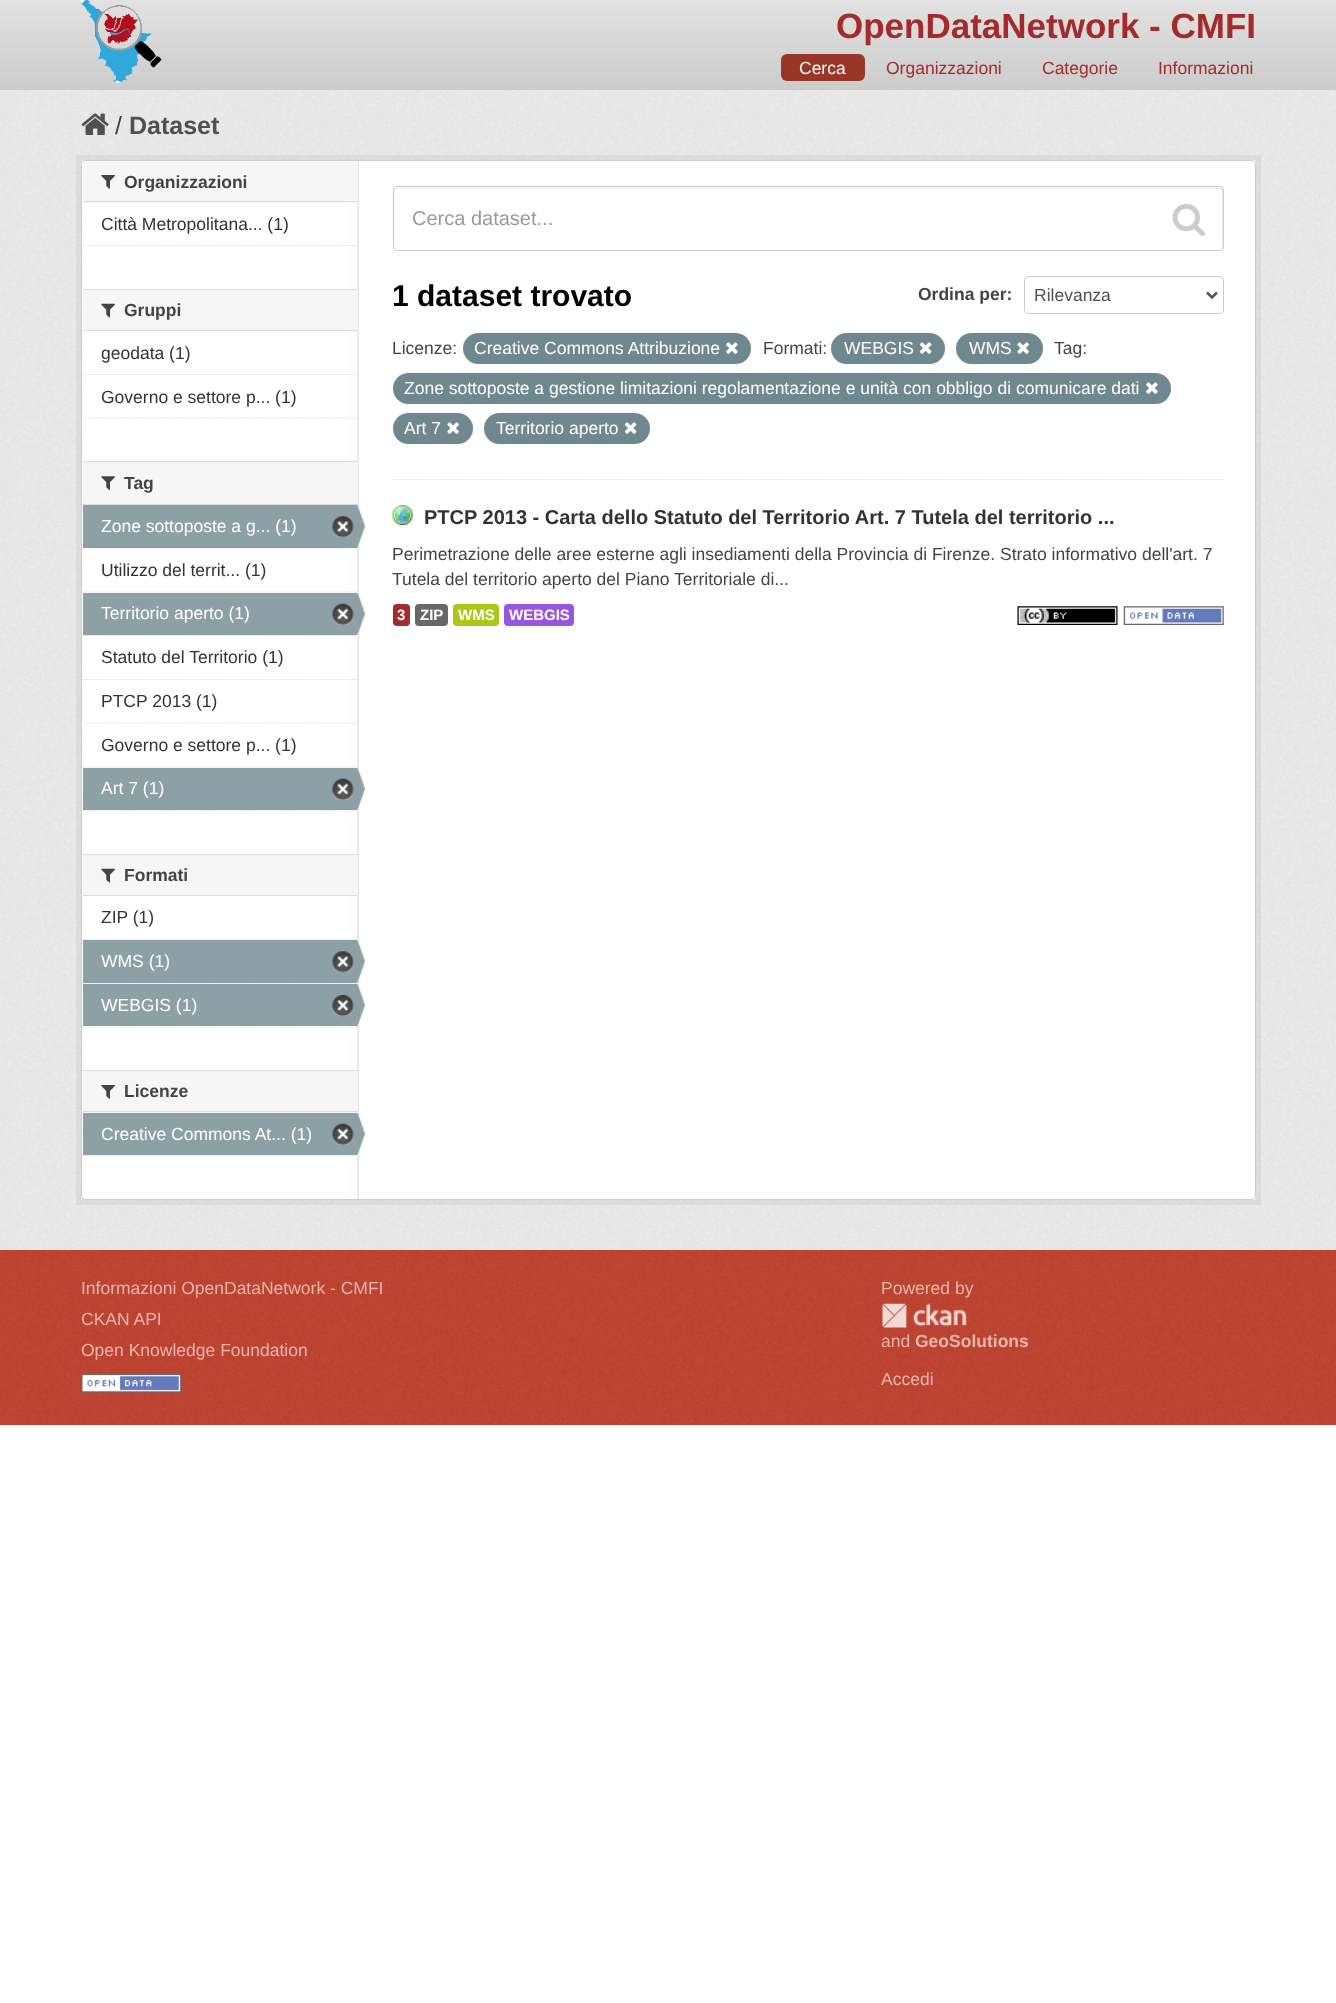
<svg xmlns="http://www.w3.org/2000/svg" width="1336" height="2003">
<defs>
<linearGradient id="g1" gradientUnits="userSpaceOnUse" x1="668" y1="0" x2="668" y2="89"><stop offset="0" stop-color="#e2e2e2"/><stop offset="1" stop-color="#ccc"/></linearGradient>
</defs>
<rect width="100%" height="100%" fill="#fff"/>
<rect width="1336" height="89" fill="url(#g1)"/>
<rect y="89" width="1336" height="1" fill="#ccc"/>
<image x="81" y="0" width="81" height="83" href="media/1.png"/>
<text x="836" y="38" style="font-family:Liberation Sans;font-size:35px;font-weight:bold;fill:#a52a2a">OpenDataNetwork - CMFI</text>
<rect x="781" y="54" width="84" height="27" rx="6" fill="#983627"/>
<text x="799" y="74" style="font-family:Liberation Sans;font-size:17.5px;fill:#fff">Cerca</text>
<text x="886" y="74" style="font-family:Liberation Sans;font-size:17.5px;fill:#a52a2a">Organizzazioni</text>
<text x="1042" y="74" style="font-family:Liberation Sans;font-size:17.5px;fill:#a52a2a">Categorie</text>
<text x="1158" y="74" style="font-family:Liberation Sans;font-size:17.5px;fill:#a52a2a">Informazioni</text>
<rect y="90" width="1336" height="1160" fill="#eee"/>
<image x="0" y="90" width="1336" height="1160" href="media/2.png"/>
<image x="81" y="113" width="28" height="22" href="media/3.png"/>
<text x="115" y="134" style="font-family:Liberation Sans;font-size:25px;fill:#444">/</text>
<text x="129" y="134" style="font-family:Liberation Sans;font-size:25px;font-weight:bold;fill:#505050">Dataset</text>
<rect x="78.5" y="157.5" width="1180" height="1045" fill="none" stroke="#0000000d" stroke-width="5"/>
<rect x="81" y="160" width="1175" height="1040" rx="5" fill="#fff"/>
<image x="84" y="160" width="275" height="1040" href="media/4.png"/>
<rect x="81.5" y="160.5" width="1174" height="1039" rx="4.5" fill="none" stroke="#ccc"/>
<path d="M87 161h271v42h-275v-38c0-2 2-4 4-4z" fill="#f6f6f6"/>
<rect x="83" y="201" width="275" height="1" fill="#ddd"/>
<image x="101" y="175" width="14" height="14" href="media/5.png"/>
<text x="124" y="188" style="font-family:Liberation Sans;font-size:17.5px;font-weight:bold;fill:#444">Organizzazioni</text>
<text x="101" y="230" style="font-family:Liberation Sans;font-size:17.5px;fill:#333">Città Metropolitana... (1)</text>
<path d="M82.5 245.5h275" fill="none" stroke="#ddd" stroke-width="1.2" stroke-dasharray="1.25 1.25"/>
<rect x="83" y="290" width="275" height="40" fill="#f6f6f6"/>
<rect x="83" y="289" width="275" height="1" fill="#ddd"/>
<rect x="83" y="330" width="275" height="1" fill="#ddd"/>
<image x="101" y="303" width="14" height="15" href="media/6.png"/>
<text x="124" y="316" style="font-family:Liberation Sans;font-size:17.5px;font-weight:bold;fill:#444">Gruppi</text>
<path d="M82.5 374.5h275" fill="none" stroke="#ddd" stroke-width="1.2" stroke-dasharray="1.25 1.25"/>
<text x="101" y="359" style="font-family:Liberation Sans;font-size:17.5px;fill:#333">geodata (1)</text>
<text x="101" y="403" style="font-family:Liberation Sans;font-size:17.5px;fill:#333">Governo e settore p... (1)</text>
<path d="M82.5 418h275" fill="none" stroke="#ddd" stroke-width="1.2" stroke-dasharray="1.25 1.25"/>
<rect x="83" y="462" width="275" height="42" fill="#f6f6f6"/>
<rect x="83" y="461" width="275" height="1" fill="#ddd"/>
<rect x="83" y="504" width="275" height="1" fill="#ddd"/>
<image x="101" y="476" width="14" height="14" href="media/7.png"/>
<text x="124" y="489" style="font-family:Liberation Sans;font-size:17.5px;font-weight:bold;fill:#444">Tag</text>
<rect x="83" y="548" width="275" height="1" fill="#f6f6f6"/>
<path d="M82.5 548h275" fill="none" stroke="#ddd" stroke-width="1.2" stroke-dasharray="1.25 1.25"/>
<rect x="83" y="505" width="275" height="43" fill="#8ca0a6"/>
<text x="101" y="532" style="font-family:Liberation Sans;font-size:17.5px;fill:#fff">Zone sottoposte a g... (1)</text>
<image x="332" y="516" width="22" height="22" href="media/8.png"/>
<image x="357" y="505" width="8" height="43" href="media/9.png"/>
<path d="M82.5 592h275" fill="none" stroke="#ddd" stroke-width="1.2" stroke-dasharray="1.25 1.25"/>
<text x="101" y="576" style="font-family:Liberation Sans;font-size:17.5px;fill:#333">Utilizzo del territ... (1)</text>
<rect x="83" y="635" width="275" height="1" fill="#f6f6f6"/>
<path d="M82.5 635.5h275" fill="none" stroke="#ddd" stroke-width="1.2" stroke-dasharray="1.25 1.25"/>
<rect x="83" y="593" width="275" height="42" fill="#8ca0a6"/>
<text x="101" y="619" style="font-family:Liberation Sans;font-size:17.5px;fill:#fff">Territorio aperto (1)</text>
<image x="332" y="603" width="22" height="22" href="media/10.png"/>
<image x="357" y="593" width="8" height="42" href="media/11.png"/>
<path d="M82.5 679.5h275" fill="none" stroke="#ddd" stroke-width="1.2" stroke-dasharray="1.25 1.25"/>
<text x="101" y="663" style="font-family:Liberation Sans;font-size:17.5px;fill:#333">Statuto del Territorio (1)</text>
<path d="M82.5 723h275" fill="none" stroke="#ddd" stroke-width="1.2" stroke-dasharray="1.25 1.25"/>
<text x="101" y="707" style="font-family:Liberation Sans;font-size:17.5px;fill:#333">PTCP 2013 (1)</text>
<path d="M82.5 767h275" fill="none" stroke="#ddd" stroke-width="1.2" stroke-dasharray="1.25 1.25"/>
<text x="101" y="751" style="font-family:Liberation Sans;font-size:17.5px;fill:#333">Governo e settore p... (1)</text>
<path d="M82.5 810.5h275" fill="none" stroke="#ddd" stroke-width="1.2" stroke-dasharray="1.25 1.25"/>
<rect x="83" y="768" width="275" height="42" fill="#8ca0a6"/>
<text x="101" y="794" style="font-family:Liberation Sans;font-size:17.5px;fill:#fff">Art 7 (1)</text>
<image x="332" y="778" width="22" height="22" href="media/12.png"/>
<image x="357" y="768" width="8" height="42" href="media/11.png"/>
<rect x="83" y="855" width="275" height="40" fill="#f6f6f6"/>
<rect x="83" y="854" width="275" height="1" fill="#ddd"/>
<rect x="83" y="895" width="275" height="1" fill="#ddd"/>
<image x="101" y="868" width="14" height="15" href="media/6.png"/>
<text x="124" y="881" style="font-family:Liberation Sans;font-size:17.5px;font-weight:bold;fill:#444">Formati</text>
<path d="M82.5 939.5h275" fill="none" stroke="#ddd" stroke-width="1.2" stroke-dasharray="1.25 1.25"/>
<text x="101" y="923" style="font-family:Liberation Sans;font-size:17.5px;fill:#333">ZIP (1)</text>
<rect x="83" y="983" width="275" height="1" fill="#f6f6f6"/>
<path d="M82.5 983h275" fill="none" stroke="#ddd" stroke-width="1.2" stroke-dasharray="1.25 1.25"/>
<rect x="83" y="940" width="275" height="43" fill="#8ca0a6"/>
<text x="101" y="967" style="font-family:Liberation Sans;font-size:17.5px;fill:#fff">WMS (1)</text>
<image x="332" y="951" width="22" height="22" href="media/8.png"/>
<image x="357" y="940" width="8" height="43" href="media/9.png"/>
<rect x="83" y="984" width="275" height="42" fill="#8ca0a6"/>
<text x="101" y="1011" style="font-family:Liberation Sans;font-size:17.5px;fill:#fff">WEBGIS (1)</text>
<image x="332" y="995" width="22" height="22" href="media/13.png"/>
<image x="357" y="984" width="8" height="42" href="media/14.png"/>
<path d="M82.5 1027h275" fill="none" stroke="#ddd" stroke-width="1.2" stroke-dasharray="1.25 1.25"/>
<rect x="83" y="1071" width="275" height="42" fill="#f6f6f6"/>
<rect x="83" y="1070" width="275" height="1" fill="#ddd"/>
<rect x="83" y="1111" width="275" height="1" fill="#ddd"/>
<image x="101" y="1085" width="14" height="14" href="media/5.png"/>
<text x="124" y="1097" style="font-family:Liberation Sans;font-size:17.5px;font-weight:bold;fill:#444">Licenze</text>
<path d="M82.5 1155.5h275" fill="none" stroke="#ddd" stroke-width="1.2" stroke-dasharray="1.25 1.25"/>
<rect x="83" y="1113" width="275" height="42" fill="#8ca0a6"/>
<text x="101" y="1140" style="font-family:Liberation Sans;font-size:17.5px;fill:#fff">Creative Commons At... (1)</text>
<image x="332" y="1123" width="22" height="22" href="media/10.png"/>
<image x="357" y="1113" width="8" height="42" href="media/11.png"/>
<path d="M392.5 479.5h831.5" fill="none" stroke="#ddd" stroke-width="1.2" stroke-dasharray="1.25 1.25"/>
<path d="M396 189h824c1 0 2 1 2 2v59c1-1 1-2 1-2v-58c0-1-1-2-3-2h-824c-1 0-2 1-2 2v1c0-1 1-2 2-2z" fill="#ececec"/>
<rect x="393.5" y="186.5" width="830" height="64" rx="3.5" fill="none" stroke="#ccc"/>
<text x="412" y="225" style="font-family:Liberation Sans;font-size:20px;fill:#999">Cerca dataset...</text>
<image x="1172" y="203" width="33" height="34" href="media/15.png"/>
<text x="392" y="306" style="font-family:Liberation Sans;font-size:30px;font-weight:bold;fill:#000">1 dataset trovato</text>
<text x="918" y="300" style="font-family:Liberation Sans;font-size:17.5px;font-weight:bold;fill:#444">Ordina per:</text>
<rect x="1024.5" y="276.5" width="199" height="37" rx="3.5" fill="none" stroke="#ccc"/>
<path d="M1207 292.5l5 5l5-5" fill="none" stroke="#555" stroke-width="2.5"/>
<text x="1034" y="301" style="font-family:Liberation Sans;font-size:17.5px;fill:#505050">Rilevanza</text>
<text x="392" y="354" style="font-family:Liberation Sans;font-size:17.5px;fill:#444">Licenze:</text>
<rect x="463" y="333" width="288" height="31" rx="15.5" fill="#6f8890"/>
<text x="474" y="354" style="font-family:Liberation Sans;font-size:17.5px;fill:#fff">Creative Commons Attribuzione</text>
<image x="726" y="342" width="12" height="12" href="media/16.png"/>
<text x="763" y="354" style="font-family:Liberation Sans;font-size:17.5px;fill:#444">Formati:</text>
<rect x="831" y="333" width="114" height="31" rx="15.5" fill="#6f8890"/>
<text x="844" y="354" style="font-family:Liberation Sans;font-size:17.5px;fill:#fff">WEBGIS</text>
<image x="919" y="342" width="13" height="12" href="media/17.png"/>
<rect x="956" y="333" width="87" height="31" rx="15.5" fill="#6f8890"/>
<text x="969" y="354" style="font-family:Liberation Sans;font-size:17.5px;fill:#fff">WMS</text>
<image x="1017" y="342" width="12" height="12" href="media/18.png"/>
<text x="1054" y="354" style="font-family:Liberation Sans;font-size:17.5px;fill:#444">Tag:</text>
<rect x="393" y="373" width="778" height="31" rx="15.5" fill="#6f8890"/>
<text x="404" y="394" style="font-family:Liberation Sans;font-size:17.5px;fill:#fff">Zone sottoposte a gestione limitazioni regolamentazione e unità con obbligo di comunicare dati</text>
<image x="1146" y="382" width="12" height="12" href="media/16.png"/>
<rect x="393" y="413" width="80" height="31" rx="15.5" fill="#6f8890"/>
<text x="404" y="434" style="font-family:Liberation Sans;font-size:17.5px;fill:#fff">Art 7</text>
<image x="447" y="422" width="12" height="12" href="media/18.png"/>
<rect x="484" y="413" width="166" height="31" rx="15.5" fill="#6f8890"/>
<text x="496" y="434" style="font-family:Liberation Sans;font-size:17.5px;fill:#fff">Territorio aperto</text>
<image x="624" y="422" width="13" height="12" href="media/17.png"/>
<image x="392" y="505" width="21" height="20" href="media/19.png"/>
<text x="424" y="524" style="font-family:Liberation Sans;font-size:20px;font-weight:bold;fill:#333">PTCP 2013 - Carta dello Statuto del Territorio Art. 7 Tutela del territorio ...</text>
<text x="392" y="560" style="font-family:Liberation Sans;font-size:17.5px;fill:#444">Perimetrazione delle aree esterne agli insediamenti della Provincia di Firenze. Strato informativo dell'art. 7</text>
<text x="392" y="585" style="font-family:Liberation Sans;font-size:17.5px;fill:#444">Tutela del territorio aperto del Piano Territoriale di...</text>
<rect x="393" y="604" width="17" height="22" rx="4" fill="#a52a2a"/>
<text x="397" y="620" style="font-family:Liberation Sans;font-size:15px;font-weight:bold;fill:#fff">3</text>
<rect x="415" y="604" width="33" height="22" rx="4" fill="#686868"/>
<text x="420" y="620" style="font-family:Liberation Sans;font-size:15px;font-weight:bold;fill:#fff">ZIP</text>
<rect x="453" y="604" width="46" height="22" rx="4" fill="#adc717"/>
<text x="458" y="620" style="font-family:Liberation Sans;font-size:15px;font-weight:bold;fill:#fff">WMS</text>
<rect x="504" y="604" width="70" height="22" rx="4" fill="#9855e0"/>
<text x="509" y="620" style="font-family:Liberation Sans;font-size:15px;font-weight:bold;fill:#fff">WEBGIS</text>
<image x="1017" y="606" width="101" height="19" href="media/20.png"/>
<image x="1123" y="606" width="101" height="19" href="media/21.png"/>
<rect y="1250" width="1336" height="175" fill="#c14531"/>
<image x="0" y="1250" width="1336" height="175" href="media/22.png"/>
<text x="81" y="1294" style="font-family:Liberation Sans;font-size:17.5px;fill:#e6b5ad">Informazioni OpenDataNetwork - CMFI</text>
<text x="81" y="1325" style="font-family:Liberation Sans;font-size:17.5px;fill:#e6b5ad">CKAN API</text>
<text x="81" y="1356" style="font-family:Liberation Sans;font-size:17.5px;fill:#e6b5ad">Open Knowledge Foundation</text>
<image x="81" y="1373" width="101" height="20" href="media/23.png"/>
<text x="881" y="1294" style="font-family:Liberation Sans;font-size:17.5px;fill:#e6b5ad">Powered by</text>
<image x="882" y="1303" width="85" height="25" href="media/24.png"/>
<text x="881" y="1347" style="font-family:Liberation Sans;font-size:17.5px;fill:#e6b5ad">and</text>
<text x="915" y="1347" style="font-family:Liberation Sans;font-size:17.5px;font-weight:bold;fill:#e6b5ad">GeoSolutions</text>
<text x="881" y="1385" style="font-family:Liberation Sans;font-size:17.5px;fill:#e6b5ad">Accedi</text>
</svg>
